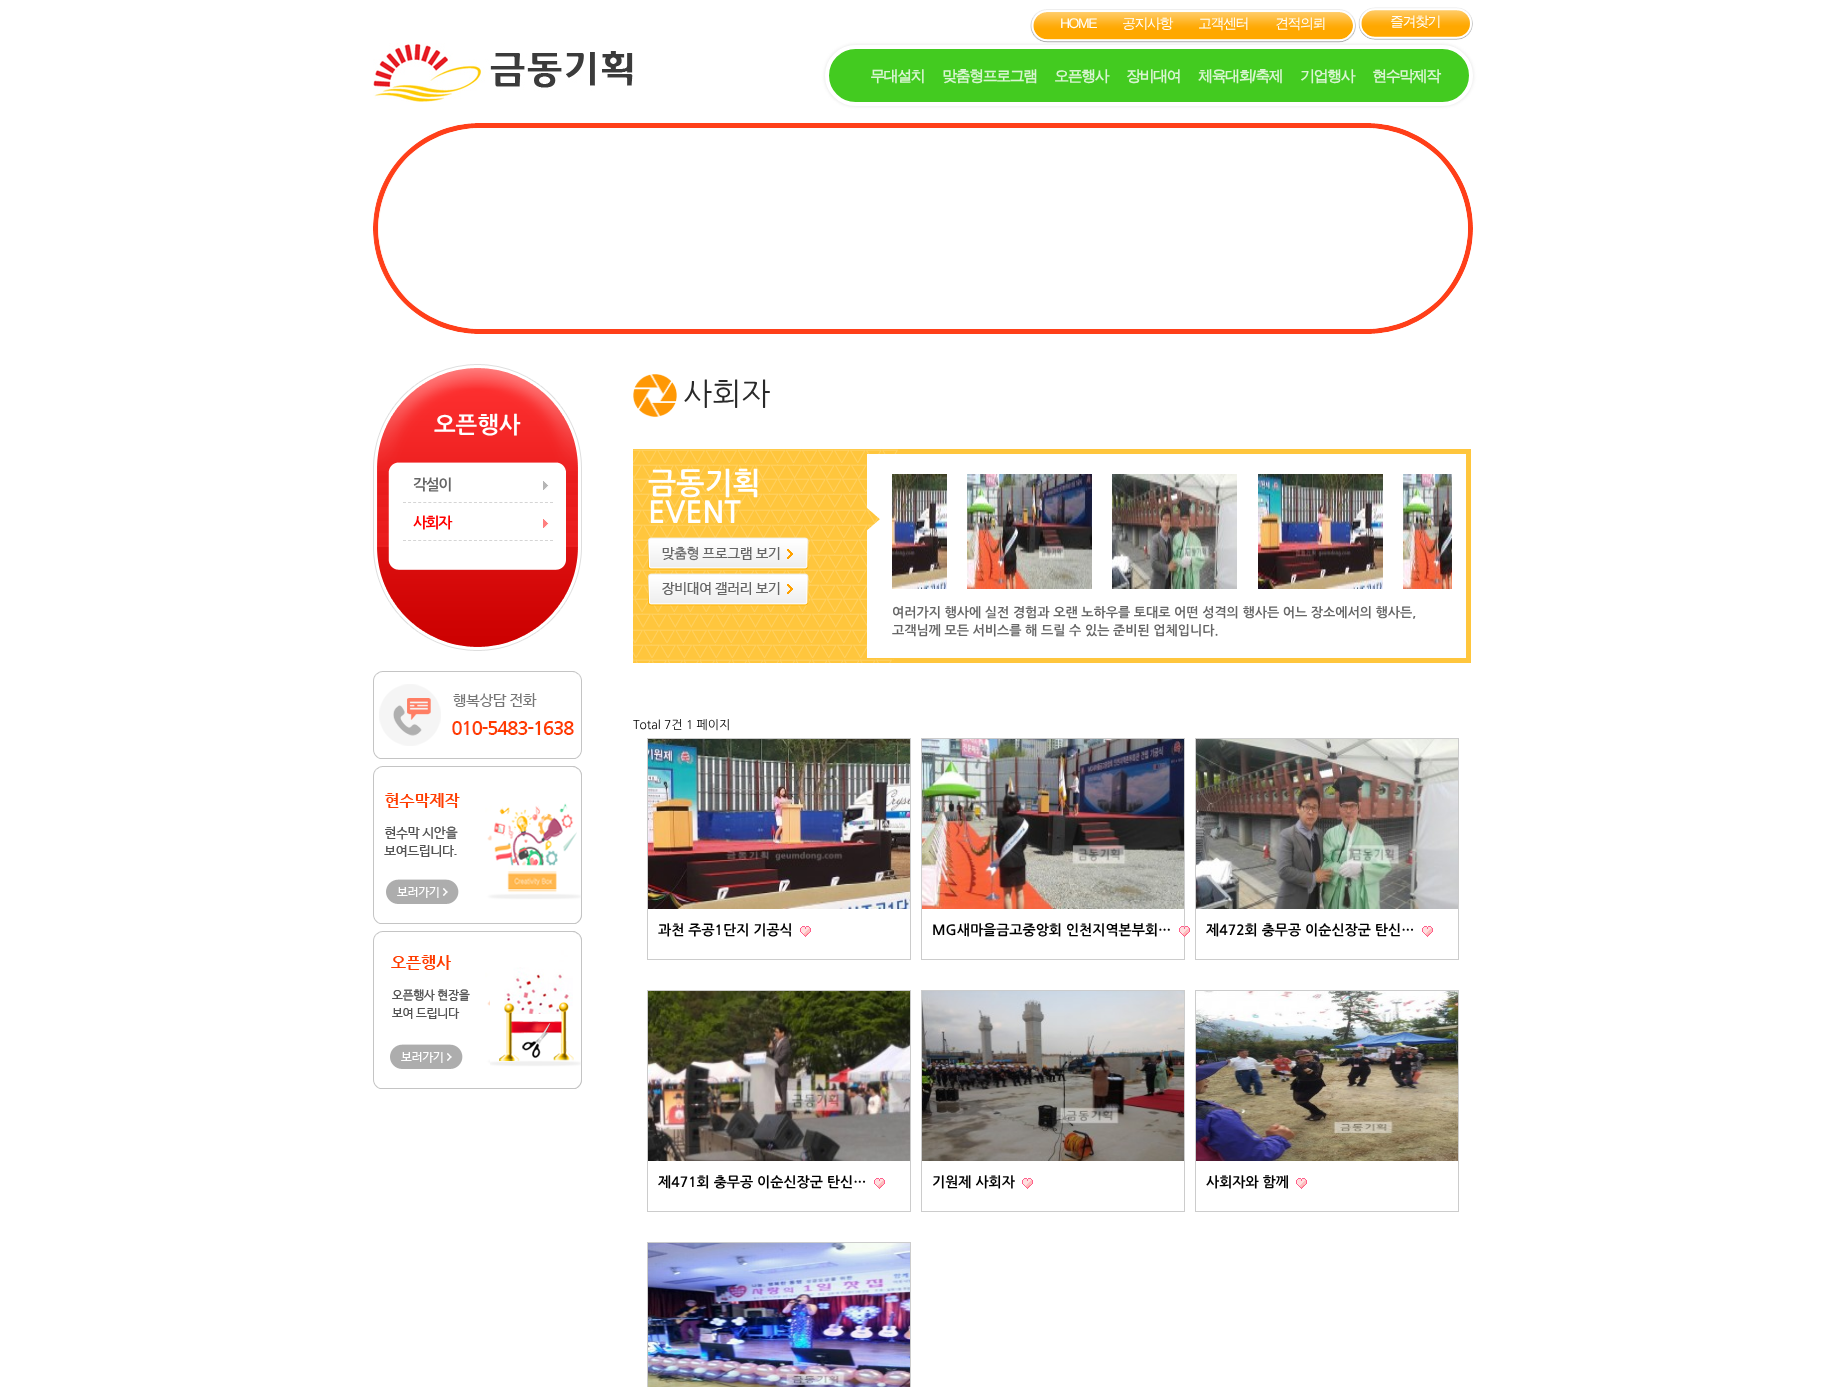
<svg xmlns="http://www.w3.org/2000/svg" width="1845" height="1387">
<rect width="100%" height="100%" fill="#fff"/>
<image x="1030" y="9" width="326" height="34" href="media/1.png"/>
<text x="1060" y="28" style="font-family:Liberation Sans;font-size:14px;letter-spacing:-1.5px;fill:#fff">HOME</text>
<text x="1122" y="28" style="font-family:WenQuanYi Zen Hei;font-size:14px;font-weight:500;letter-spacing:-1.5px;fill:#fff">공지사항</text>
<text x="1198" y="28" style="font-family:WenQuanYi Zen Hei;font-size:14px;font-weight:500;letter-spacing:-1.5px;fill:#fff">고객센터</text>
<text x="1275" y="28" style="font-family:WenQuanYi Zen Hei;font-size:14px;font-weight:500;letter-spacing:-1.5px;fill:#fff">견적의뢰</text>
<image x="1358" y="7" width="115" height="33" href="media/2.png"/>
<text x="1390" y="26" style="font-family:WenQuanYi Zen Hei;font-size:14px;font-weight:500;letter-spacing:-1.5px;fill:#fff">즐겨찾기</text>
<image x="373" y="43" width="260" height="59" href="media/3.png"/>
<rect x="824" y="44" width="650" height="63" rx="31.5" fill="#c7c7c754" filter="blur(1.5px)"/>
<rect x="827" y="47" width="644" height="57" rx="28.5" fill="#43cb20" stroke="#fff" stroke-width="4"/>
<text x="870" y="81" style="font-family:WenQuanYi Zen Hei;font-size:15px;font-weight:bold;letter-spacing:-1.5px;fill:#d9f5d2">무대설치</text>
<text x="942" y="81" style="font-family:WenQuanYi Zen Hei;font-size:15px;font-weight:bold;letter-spacing:-1.5px;fill:#d9f5d2">맞춤형프로그램</text>
<text x="1054" y="81" style="font-family:WenQuanYi Zen Hei;font-size:15px;font-weight:bold;letter-spacing:-1.5px;fill:#d9f5d2">오픈행사</text>
<text x="1126" y="81" style="font-family:WenQuanYi Zen Hei;font-size:15px;font-weight:bold;letter-spacing:-1.5px;fill:#d9f5d2">장비대여</text>
<text x="1198" y="81" style="font-family:WenQuanYi Zen Hei;font-size:15px;font-weight:bold;letter-spacing:-1.5px;fill:#d9f5d2">체육대회</text>
<text x="1252" y="81" style="font-family:Liberation Sans;font-size:15px;font-weight:bold;letter-spacing:-1.5px;fill:#d9f5d2">/</text>
<text x="1255" y="81" style="font-family:WenQuanYi Zen Hei;font-size:15px;font-weight:bold;letter-spacing:-1.5px;fill:#d9f5d2">축제</text>
<text x="1300" y="81" style="font-family:WenQuanYi Zen Hei;font-size:15px;font-weight:bold;letter-spacing:-1.5px;fill:#d9f5d2">기업행사</text>
<text x="1372" y="81" style="font-family:WenQuanYi Zen Hei;font-size:15px;font-weight:bold;letter-spacing:-1.5px;fill:#d9f5d2">현수막제작</text>
<image x="373" y="123" width="1100" height="211" href="media/4.png"/>
<image x="373" y="547" width="209" height="104" href="media/5.png"/>
<image x="373" y="364" width="209" height="107" href="media/6.png"/>
<text x="434" y="433" style="font-family:NanumGothic;font-size:23px;font-weight:bold;fill:#fff">오픈행사</text>
<image x="373" y="471" width="209" height="38" href="media/7.png"/>
<image x="543" y="481" width="6" height="9" href="media/8.png"/>
<path d="M403 502.5h150" fill="none" stroke="#d5d5d5" stroke-dasharray="3 2.07"/>
<text x="413" y="490" style="font-family:NanumGothic;font-size:15px;font-weight:bold;letter-spacing:-1.5px;fill:#666">각설이</text>
<image x="373" y="509" width="209" height="38" href="media/7.png"/>
<image x="543" y="519" width="6" height="9" href="media/9.png"/>
<path d="M403 540.5h150" fill="none" stroke="#d5d5d5" stroke-dasharray="3 2.07"/>
<text x="413" y="528" style="font-family:NanumGothic;font-size:15px;font-weight:bold;letter-spacing:-1.5px;fill:#f00">사회자</text>
<image x="373" y="671" width="209" height="88" href="media/10.png"/>
<image x="373" y="766" width="209" height="158" href="media/11.png"/>
<image x="373" y="931" width="209" height="158" href="media/12.png"/>
<image x="633" y="374" width="44" height="43" href="media/13.png"/>
<text x="683" y="405" style="font-family:NanumGothic;font-size:31px;fill:#292929">사회자</text>
<image x="633" y="449" width="838" height="214" href="media/14.png"/>
<text x="648" y="494" style="font-family:NanumGothic;font-size:30px;font-weight:bold;fill:#fff">금동기획</text>
<text x="648" y="523" style="font-family:NanumGothic;font-size:30px;font-weight:bold;fill:#fff">EVENT</text>
<image x="648" y="537" width="161" height="33" href="media/15.png"/>
<image x="648" y="573" width="161" height="33" href="media/16.png"/>
<image x="892" y="474" width="55" height="115" href="media/17.png"/>
<image x="967" y="474" width="125" height="115" href="media/18.png"/>
<image x="1112" y="474" width="125" height="115" href="media/19.png"/>
<image x="1258" y="474" width="125" height="115" href="media/20.png"/>
<image x="1403" y="474" width="49" height="115" href="media/21.png"/>
<text x="892" y="617" style="font-family:NanumGothic;font-size:13px;font-weight:bold;fill:#666">여러가지 행사에 실전 경험과 오랜 노하우를 토대로 어떤 성격의 행사든 어느 장소에서의 행사든,</text>
<text x="892" y="635" style="font-family:NanumGothic;font-size:13px;font-weight:bold;fill:#666">고객님께 모든 서비스를 해 드릴 수 있는 준비된 업체입니다.</text>
<text x="633" y="729" style="font-family:NanumGothic;font-size:12px;fill:#000">Total 7건 1 페이지</text>
<rect x="647.5" y="738.5" width="263" height="221" fill="none" stroke="#ccc"/>
<image x="648" y="739" width="262" height="170" href="media/22.png"/>
<text x="658" y="935" style="font-family:NanumGothic;font-size:14px;font-weight:bold;fill:#000">과천 주공1단지 기공식</text>
<image x="800" y="926" width="11" height="11" href="media/23.png"/>
<rect x="921.5" y="738.5" width="263" height="221" fill="none" stroke="#ccc"/>
<image x="922" y="739" width="262" height="170" href="media/24.png"/>
<text x="932" y="935" style="font-family:NanumGothic;font-size:14px;font-weight:bold;fill:#000">MG새마을금고중앙회 인천지역본부회…</text>
<image x="1179" y="926" width="11" height="11" href="media/25.png"/>
<rect x="1195.5" y="738.5" width="263" height="221" fill="none" stroke="#ccc"/>
<image x="1196" y="739" width="262" height="170" href="media/26.png"/>
<text x="1206" y="935" style="font-family:NanumGothic;font-size:14px;font-weight:bold;fill:#000">제472회 충무공 이순신장군 탄신…</text>
<image x="1422" y="926" width="11" height="11" href="media/23.png"/>
<rect x="647.5" y="990.5" width="263" height="221" fill="none" stroke="#ccc"/>
<image x="648" y="991" width="262" height="170" href="media/27.png"/>
<text x="658" y="1187" style="font-family:NanumGothic;font-size:14px;font-weight:bold;fill:#000">제471회 충무공 이순신장군 탄신…</text>
<image x="874" y="1178" width="11" height="11" href="media/23.png"/>
<rect x="921.5" y="990.5" width="263" height="221" fill="none" stroke="#ccc"/>
<image x="922" y="991" width="262" height="170" href="media/28.png"/>
<text x="932" y="1187" style="font-family:NanumGothic;font-size:14px;font-weight:bold;fill:#000">기원제 사회자</text>
<image x="1022" y="1178" width="11" height="11" href="media/23.png"/>
<rect x="1195.5" y="990.5" width="263" height="221" fill="none" stroke="#ccc"/>
<image x="1196" y="991" width="262" height="170" href="media/29.png"/>
<text x="1206" y="1187" style="font-family:NanumGothic;font-size:14px;font-weight:bold;fill:#000">사회자와 함께</text>
<image x="1296" y="1178" width="11" height="11" href="media/23.png"/>
<rect x="647.5" y="1242.5" width="263" height="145" fill="none" stroke="#ccc"/>
<image x="648" y="1243" width="262" height="144" href="media/30.png"/>
</svg>
